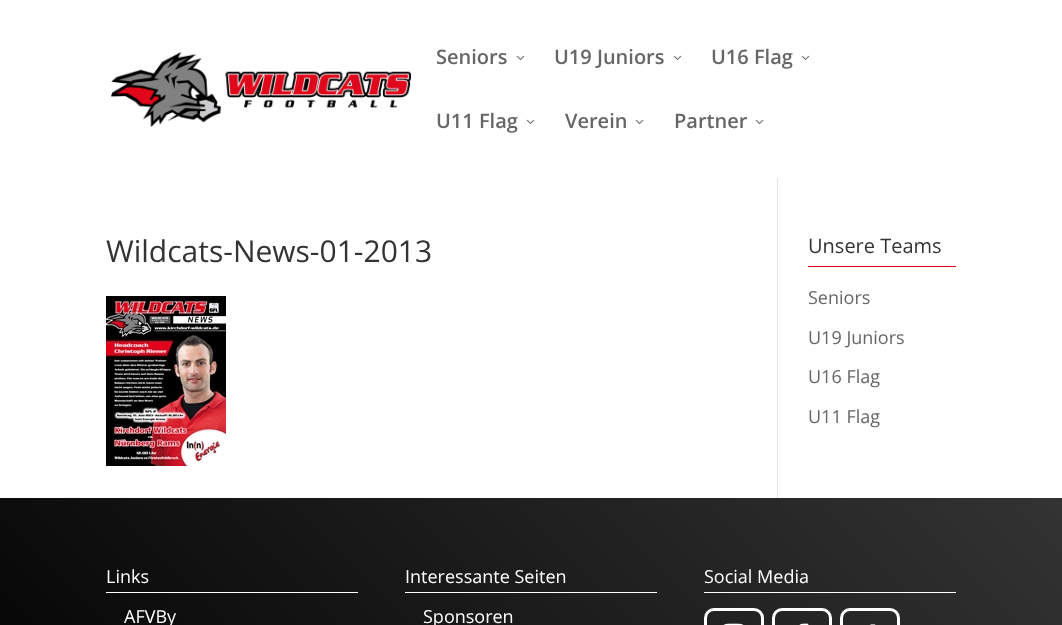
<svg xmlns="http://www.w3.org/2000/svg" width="1062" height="625">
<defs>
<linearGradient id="g1" gradientUnits="userSpaceOnUse" x1="182" y1="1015" x2="880" y2="316"><stop offset="0" stop-color="#000"/><stop offset="1" stop-color="#333"/></linearGradient>
</defs>
<rect width="100%" height="100%" fill="#fff"/>
<image x="111" y="52" width="300" height="75" href="media/1.png"/>
<text x="436" y="64" style="font-family:Open Sans;font-size:20px;font-weight:600;fill:#666">Seniors</text>
<image x="516" y="55" width="9" height="5" href="media/2.png"/>
<text x="554" y="64" style="font-family:Open Sans;font-size:20px;font-weight:600;fill:#666">U19 Juniors</text>
<image x="673" y="55" width="9" height="5" href="media/2.png"/>
<text x="711" y="64" style="font-family:Open Sans;font-size:20px;font-weight:600;fill:#666">U16 Flag</text>
<image x="801" y="55" width="9" height="5" href="media/2.png"/>
<text x="436" y="128" style="font-family:Open Sans;font-size:20px;font-weight:600;fill:#666">U11 Flag</text>
<image x="526" y="119" width="9" height="5" href="media/2.png"/>
<text x="565" y="128" style="font-family:Open Sans;font-size:20px;font-weight:600;fill:#666">Verein</text>
<image x="635" y="119" width="9" height="5" href="media/2.png"/>
<text x="674" y="128" style="font-family:Open Sans;font-size:20px;font-weight:600;fill:#666">Partner</text>
<image x="755" y="119" width="9" height="5" href="media/2.png"/>
<rect x="777" y="178" width="1" height="320" fill="#e2e2e2"/>
<text x="106" y="262" style="font-family:Open Sans;font-size:30px;fill:#333">Wildcats-News-01-2013</text>
<image x="106" y="296" width="120" height="170" href="media/3.png"/>
<rect x="808" y="266" width="148" height="1" fill="#e1061a"/>
<text x="808" y="253" style="font-family:Open Sans;font-size:20px;fill:#333">Unsere Teams</text>
<text x="808" y="304" style="font-family:Open Sans;font-size:18px;fill:#666">Seniors</text>
<text x="808" y="344" style="font-family:Open Sans;font-size:18px;fill:#666">U19 Juniors</text>
<text x="808" y="383" style="font-family:Open Sans;font-size:18px;fill:#666">U16 Flag</text>
<text x="808" y="423" style="font-family:Open Sans;font-size:18px;fill:#666">U11 Flag</text>
<rect y="498" width="1062" height="127" fill="url(#g1)"/>
<rect x="106" y="592" width="252" height="1" fill="#fff"/>
<text x="106" y="583" style="font-family:Open Sans;font-size:18px;fill:#fff">Links</text>
<text x="124" y="623" style="font-family:Open Sans;font-size:18px;fill:#fff">AFVBy</text>
<rect x="405" y="592" width="252" height="1" fill="#fff"/>
<text x="405" y="583" style="font-family:Open Sans;font-size:18px;fill:#fff">Interessante Seiten</text>
<text x="423" y="623" style="font-family:Open Sans;font-size:18px;fill:#fff">Sponsoren</text>
<rect x="704" y="592" width="252" height="1" fill="#fff"/>
<text x="704" y="583" style="font-family:Open Sans;font-size:18px;fill:#fff">Social Media</text>
<rect x="705.5" y="609.5" width="57" height="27" rx="8.5" fill="none" stroke="#fff" stroke-width="3"/>
<image x="723" y="623" width="21" height="2" href="media/4.png"/>
<rect x="773.5" y="609.5" width="57" height="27" rx="8.5" fill="none" stroke="#fff" stroke-width="3"/>
<image x="799" y="623" width="10" height="2" href="media/5.png"/>
<rect x="841.5" y="609.5" width="57" height="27" rx="8.5" fill="none" stroke="#fff" stroke-width="3"/>
<image x="870" y="624" width="6" height="1" href="media/6.png"/>
</svg>
